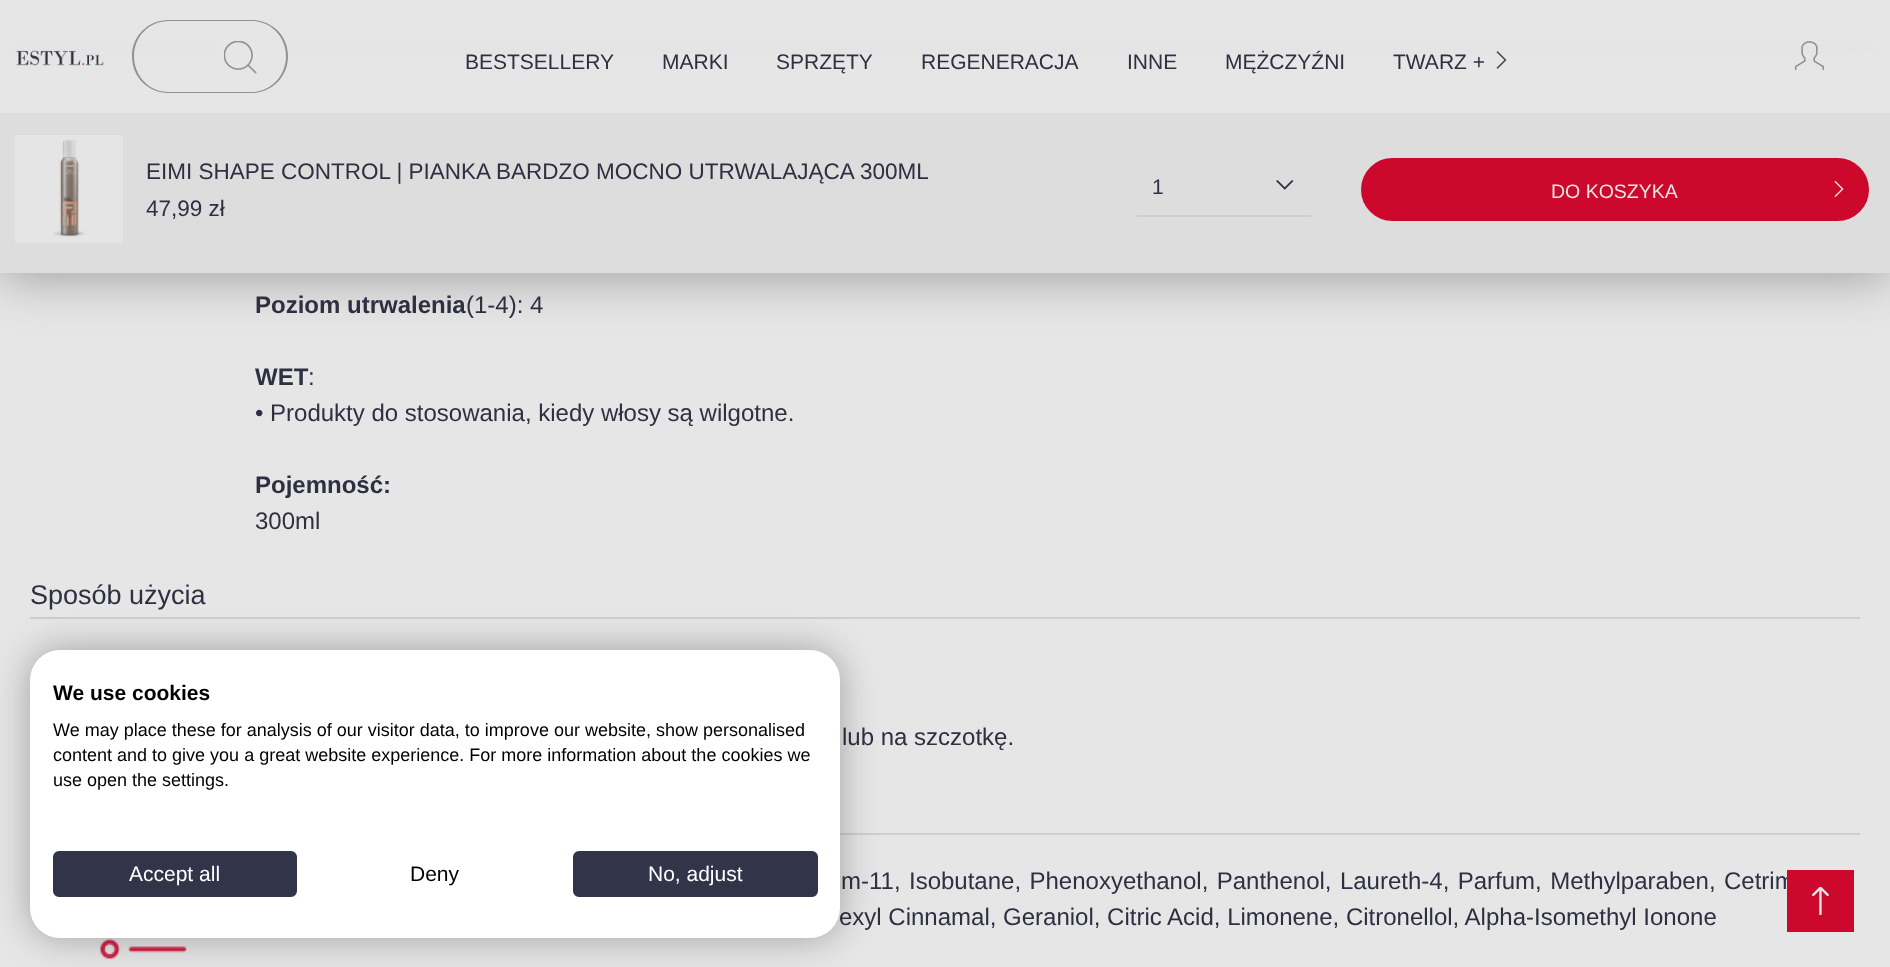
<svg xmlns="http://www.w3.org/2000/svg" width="1890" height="967">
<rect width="100%" height="100%" fill="#e6e6e6"/>
<rect y="101" width="1890" height="174" fill="#989898" filter="blur(26px)"/>
<rect y="53" width="1890" height="60" fill="#e6e6e6"/>
<image x="16" y="50" width="88" height="16" href="media/1.png"/>
<path d="M169 20h50v73h-50c-21 0-37-16-37-37c0-20 16-36 37-36zm0 1h50v71h-50c-20 0-35-16-35-36c0-19 15-35 35-35z" fill="#919191" fill-rule="evenodd"/>
<path d="M218 20h33.5c20 0 36.5 16.5 36.5 36.5c0 20-16.5 36.5-36.5 36.5h-33.5z" fill="#e6e6e6"/>
<path d="M218 20h33c21 0 37 16 37 36c0 21-16 37-37 37h-33zm0 1h33c20 0 35 16 35 35c0 20-15 36-35 36h-33z" fill="#919191" fill-rule="evenodd"/>
<image x="224" y="41" width="33" height="33" href="media/2.png"/>
<text x="465" y="69" style="font-family:Liberation Sans;font-size:21px;fill:#2e3042">BESTSELLERY</text>
<text x="662" y="69" style="font-family:Liberation Sans;font-size:21px;fill:#2e3042">MARKI</text>
<text x="776" y="69" style="font-family:Liberation Sans;font-size:21px;fill:#2e3042">SPRZĘTY</text>
<text x="921" y="69" style="font-family:Liberation Sans;font-size:21px;fill:#2e3042">REGENERACJA</text>
<text x="1127" y="69" style="font-family:Liberation Sans;font-size:21px;fill:#2e3042">INNE</text>
<text x="1225" y="69" style="font-family:Liberation Sans;font-size:21px;fill:#2e3042">MĘŻCZYŹNI</text>
<text x="1393" y="69" style="font-family:Liberation Sans;font-size:21px;fill:#2e3042">TWARZ +</text>
<image x="1496" y="51" width="11" height="18" href="media/3.png"/>
<image x="1794" y="41" width="30" height="29" href="media/4.png"/>
<rect y="113" width="1890" height="160" fill="#ddd"/>
<image x="15" y="135" width="108" height="108" href="media/5.png"/>
<text x="146" y="179" style="font-family:Liberation Sans;font-size:22.5px;fill:#2e3042">EIMI SHAPE CONTROL | PIANKA BARDZO MOCNO UTRWALAJĄCA 300ML</text>
<text x="146" y="216" style="font-family:Liberation Sans;font-size:22.5px;fill:#2e3042">47,99 zł</text>
<rect x="1137" y="215" width="174" height="2" fill="#cecece"/>
<text x="1152" y="194" style="font-family:Liberation Sans;font-size:21px;fill:#2e3042">1</text>
<path d="M1277.5 180l8.5 8.5l-1.5 1l-8.5-8.5z" fill="#2e3042"/>
<path d="M1283.5 188.5l8.5-8.5l1.5 1l-8.5 8.5z" fill="#2e3042"/>
<rect x="1362" y="159" width="506" height="61" rx="30.5" fill="#cc092d" stroke="#cc092d" stroke-width="2"/>
<text x="1551" y="198" style="font-family:Liberation Sans;font-size:19.5px;fill:#e6e6e6">DO KOSZYKA</text>
<image x="1834" y="181" width="10" height="16" href="media/6.png"/>
<text x="255" y="313" style="font-family:Liberation Sans;font-size:24px;font-weight:bold;fill:#2e3042">Poziom utrwalenia</text>
<text x="466" y="313" style="font-family:Liberation Sans;font-size:24px;fill:#2e3042">(1-4): 4</text>
<text x="255" y="385" style="font-family:Liberation Sans;font-size:24px;font-weight:bold;fill:#2e3042">WET</text>
<text x="308" y="385" style="font-family:Liberation Sans;font-size:24px;fill:#2e3042">:</text>
<text x="255" y="421" style="font-family:Liberation Sans;font-size:24px;fill:#2e3042">• Produkty do stosowania, kiedy włosy są wilgotne.</text>
<text x="255" y="493" style="font-family:Liberation Sans;font-size:24px;font-weight:bold;fill:#2e3042">Pojemność:</text>
<text x="255" y="529" style="font-family:Liberation Sans;font-size:24px;fill:#2e3042">300ml</text>
<rect x="30" y="617" width="1830" height="2" fill="#cecece"/>
<text x="30" y="604" style="font-family:Liberation Sans;font-size:27px;fill:#2e3042">Sposób użycia</text>
<text x="842" y="745" style="font-family:Liberation Sans;font-size:24px;fill:#2e3042">lub na szczotkę.</text>
<rect x="840" y="833" width="1020" height="2" fill="#cecece"/>
<text x="841" y="889" word-spacing="1.75" style="font-family:Liberation Sans;font-size:24px;fill:#2e3042">m-11, Isobutane, Phenoxyethanol, Panthenol, Laureth-4, Parfum, Methylparaben, Cetrim</text>
<text x="839" y="925" style="font-family:Liberation Sans;font-size:24px;fill:#2e3042">exyl Cinnamal, Geraniol, Citric Acid, Limonene, Citronellol, Alpha-Isomethyl Ionone</text>
<image x="100" y="938" width="87" height="21" href="media/7.png"/>
<rect x="30" y="650" width="810" height="288" rx="30" fill="#0000004d" filter="blur(18px)"/>
<rect x="30" y="650" width="810" height="288" rx="30" fill="#fff"/>
<text x="53" y="700" style="font-family:Liberation Sans;font-size:21px;font-weight:bold;fill:#000">We use cookies</text>
<text x="53" y="736" style="font-family:Liberation Sans;font-size:18px;fill:#000">We may place these for analysis of our visitor data, to improve our website, show personalised</text>
<text x="53" y="761" style="font-family:Liberation Sans;font-size:18px;fill:#000">content and to give you a great website experience. For more information about the cookies we</text>
<text x="53" y="786" style="font-family:Liberation Sans;font-size:18px;fill:#000">use open the settings.</text>
<rect x="54" y="852" width="242" height="44" rx="5" fill="#323549" stroke="#323549" stroke-width="2"/>
<text x="129" y="881" style="font-family:Liberation Sans;font-size:21px;fill:#fff">Accept all</text>
<text x="410" y="881" style="font-family:Liberation Sans;font-size:21px;fill:#000">Deny</text>
<rect x="574" y="852" width="243" height="44" rx="5" fill="#323549" stroke="#323549" stroke-width="2"/>
<text x="648" y="881" style="font-family:Liberation Sans;font-size:21px;fill:#fff">No, adjust</text>
<rect x="1787" y="870" width="67" height="62" fill="#cc092d"/>
<image x="1812" y="887" width="17" height="28" href="media/8.png"/>
</svg>
